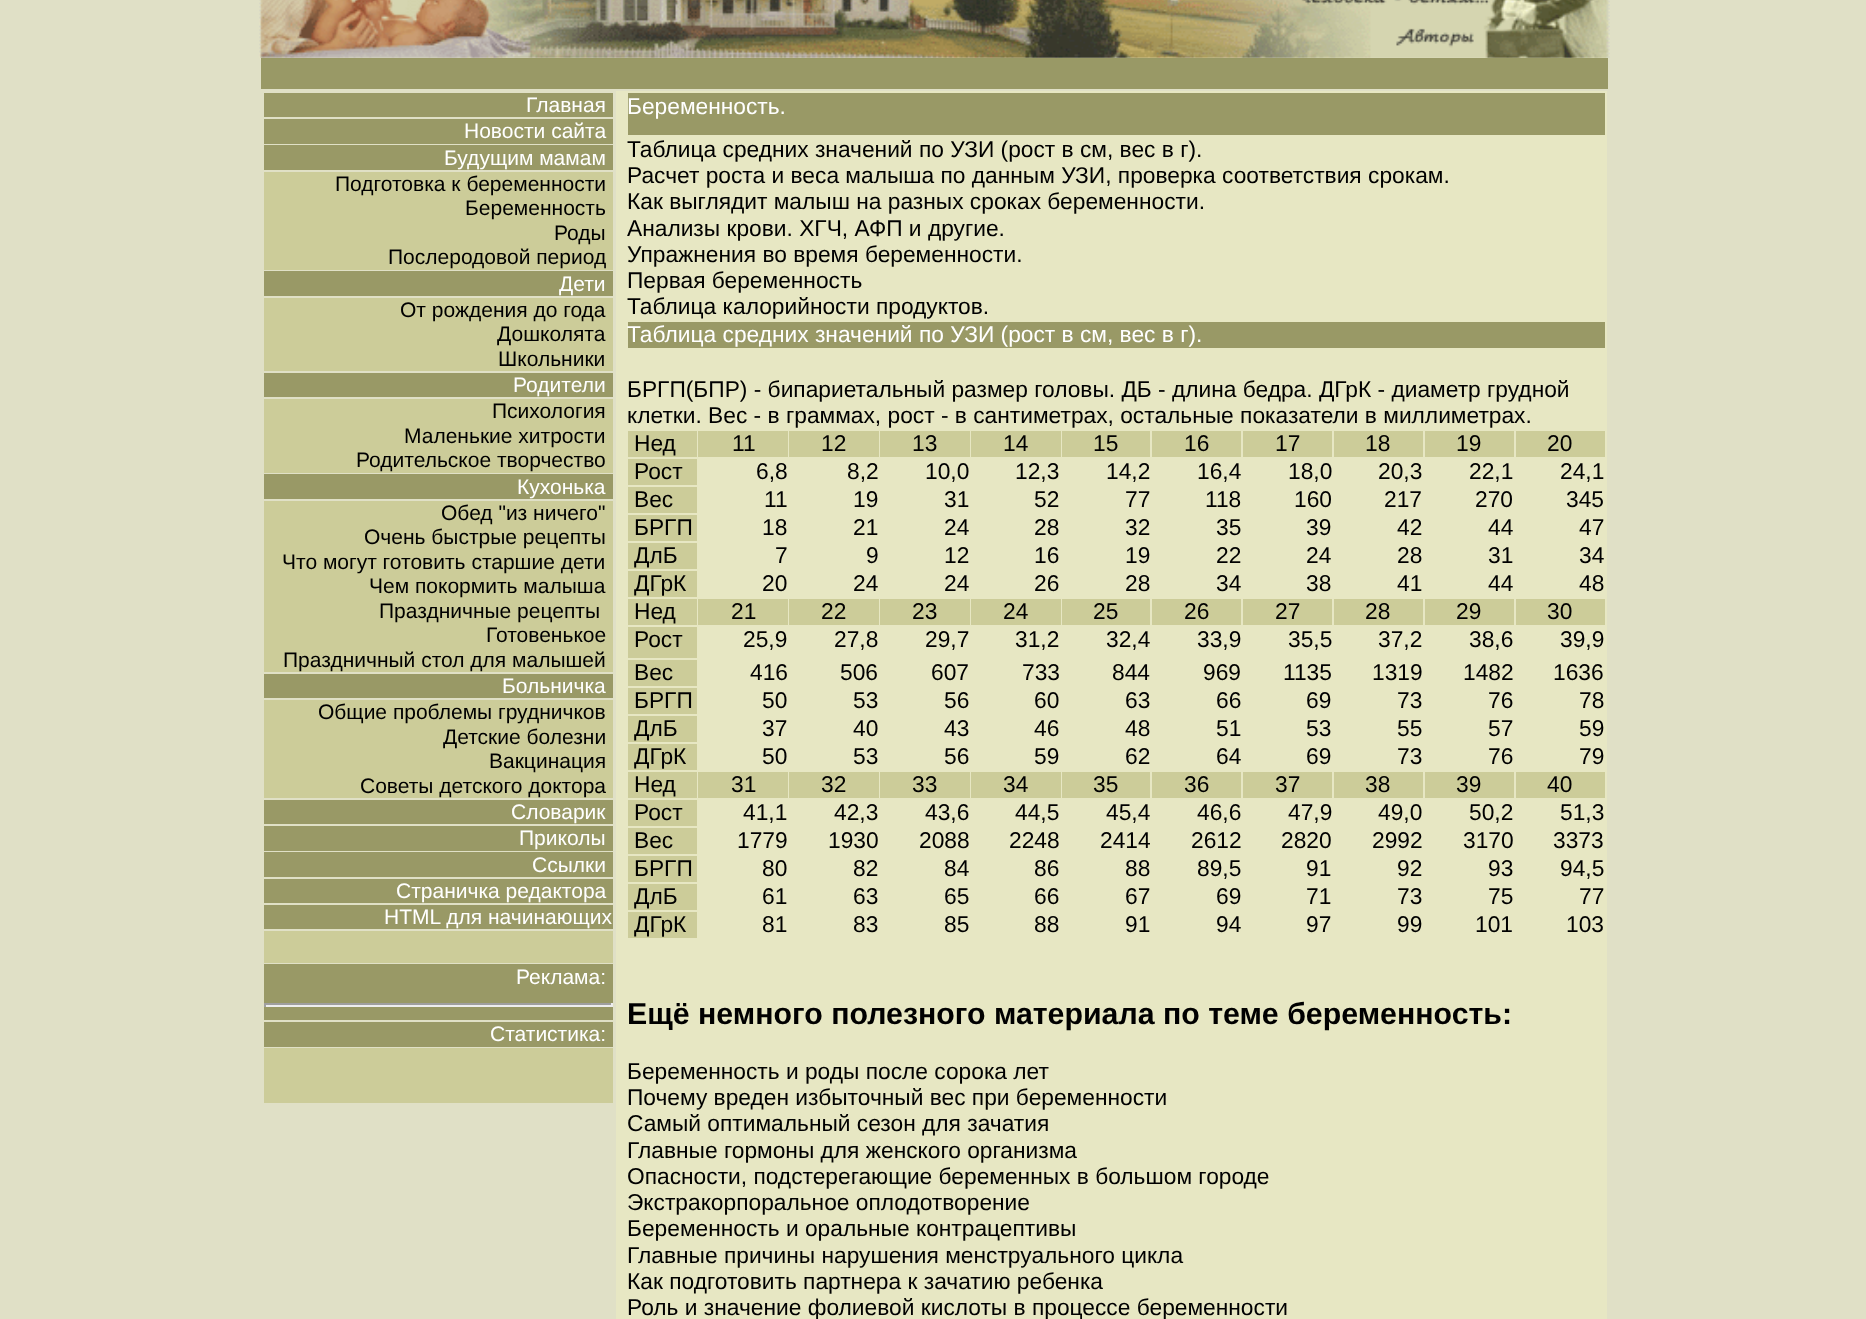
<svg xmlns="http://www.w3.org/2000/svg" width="1866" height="1319">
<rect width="100%" height="100%" fill="#e0e0c6"/>
<image x="259" y="0" width="1351" height="58" href="media/1.png"/>
<rect x="261" y="58" width="1347" height="31" fill="#996"/>
<rect x="264" y="93" width="349" height="24" fill="#996"/>
<text x="526" y="112" style="font-family:Liberation Sans;font-size:21px;fill:#fff">Главная</text>
<rect x="264" y="119" width="349" height="25" fill="#996"/>
<text x="464" y="138" style="font-family:Liberation Sans;font-size:21px;fill:#fff">Новости сайта</text>
<rect x="264" y="145" width="349" height="25" fill="#996"/>
<text x="444" y="165" style="font-family:Liberation Sans;font-size:21px;fill:#fff">Будущим мамам</text>
<rect x="264" y="172" width="349" height="98" fill="#cc9"/>
<text x="335" y="191" style="font-family:Liberation Sans;font-size:21px;fill:#000">Подготовка к беременности</text>
<text x="465" y="215" style="font-family:Liberation Sans;font-size:21px;fill:#000">Беременность</text>
<text x="554" y="240" style="font-family:Liberation Sans;font-size:21px;fill:#000">Роды</text>
<text x="388" y="264" style="font-family:Liberation Sans;font-size:21px;fill:#000">Послеродовой период</text>
<rect x="264" y="271" width="349" height="25" fill="#996"/>
<text x="559" y="291" style="font-family:Liberation Sans;font-size:21px;fill:#fff">Дети</text>
<rect x="264" y="298" width="349" height="73" fill="#cc9"/>
<text x="400" y="317" style="font-family:Liberation Sans;font-size:21px;fill:#000">От рождения до года</text>
<text x="497" y="341" style="font-family:Liberation Sans;font-size:21px;fill:#000">Дошколята</text>
<text x="498" y="366" style="font-family:Liberation Sans;font-size:21px;fill:#000">Школьники</text>
<rect x="264" y="373" width="349" height="24" fill="#996"/>
<text x="513" y="392" style="font-family:Liberation Sans;font-size:21px;fill:#fff">Родители</text>
<rect x="264" y="399" width="349" height="74" fill="#cc9"/>
<text x="492" y="418" style="font-family:Liberation Sans;font-size:21px;fill:#000">Психология</text>
<text x="404" y="443" style="font-family:Liberation Sans;font-size:21px;fill:#000">Маленькие хитрости</text>
<text x="356" y="467" style="font-family:Liberation Sans;font-size:21px;fill:#000">Родительское творчество</text>
<rect x="264" y="474" width="349" height="25" fill="#996"/>
<text x="517" y="494" style="font-family:Liberation Sans;font-size:21px;fill:#fff">Кухонька</text>
<rect x="264" y="501" width="349" height="171" fill="#cc9"/>
<text x="441" y="520" style="font-family:Liberation Sans;font-size:21px;fill:#000">Обед "из ничего"</text>
<text x="364" y="544" style="font-family:Liberation Sans;font-size:21px;fill:#000">Очень быстрые рецепты</text>
<text x="282" y="569" style="font-family:Liberation Sans;font-size:21px;fill:#000">Что могут готовить старшие дети</text>
<text x="369" y="593" style="font-family:Liberation Sans;font-size:21px;fill:#000">Чем покормить малыша</text>
<text x="379" y="618" style="font-family:Liberation Sans;font-size:21px;fill:#000">Праздничные рецепты</text>
<text x="486" y="642" style="font-family:Liberation Sans;font-size:21px;fill:#000">Готовенькое</text>
<text x="283" y="667" style="font-family:Liberation Sans;font-size:21px;fill:#000">Праздничный стол для малышей</text>
<rect x="264" y="674" width="349" height="24" fill="#996"/>
<text x="502" y="693" style="font-family:Liberation Sans;font-size:21px;fill:#fff">Больничка</text>
<rect x="264" y="700" width="349" height="98" fill="#cc9"/>
<text x="318" y="719" style="font-family:Liberation Sans;font-size:21px;fill:#000">Общие проблемы грудничков</text>
<text x="443" y="744" style="font-family:Liberation Sans;font-size:21px;fill:#000">Детские болезни</text>
<text x="489" y="768" style="font-family:Liberation Sans;font-size:21px;fill:#000">Вакцинация</text>
<text x="360" y="793" style="font-family:Liberation Sans;font-size:21px;fill:#000">Советы детского доктора</text>
<rect x="264" y="800" width="349" height="24" fill="#996"/>
<text x="511" y="819" style="font-family:Liberation Sans;font-size:21px;fill:#fff">Словарик</text>
<rect x="264" y="826" width="349" height="25" fill="#996"/>
<text x="519" y="845" style="font-family:Liberation Sans;font-size:21px;fill:#fff">Приколы</text>
<rect x="264" y="852" width="349" height="25" fill="#996"/>
<text x="532" y="872" style="font-family:Liberation Sans;font-size:21px;fill:#fff">Ссылки</text>
<rect x="264" y="879" width="349" height="24" fill="#996"/>
<text x="396" y="898" style="font-family:Liberation Sans;font-size:21px;fill:#fff">Страничка редактора</text>
<rect x="264" y="905" width="349" height="24" fill="#996"/>
<text x="384" y="924" style="font-family:Liberation Sans;font-size:21px;fill:#fff">HTML для начинающих</text>
<rect x="264" y="931" width="349" height="32" fill="#cc9"/>
<rect x="264" y="964" width="349" height="56" fill="#996"/>
<text x="516" y="984" style="font-family:Liberation Sans;font-size:21px;fill:#fff">Реклама:</text>
<rect x="264" y="1003" width="349" height="2" fill="#9f9f9f"/>
<rect x="611" y="1003" width="2" height="4" fill="#eee"/>
<rect x="264" y="1005" width="349" height="2" fill="#eee"/>
<rect x="264" y="1003" width="2" height="4" fill="#9f9f9f"/>
<rect x="264" y="1022" width="349" height="25" fill="#996"/>
<text x="490" y="1041" style="font-family:Liberation Sans;font-size:21px;fill:#fff">Статистика:</text>
<rect x="264" y="1048" width="349" height="55" fill="#cc9"/>
<rect x="616" y="91" width="991" height="1228" fill="#e7e7c3"/>
<rect x="628" y="93" width="977" height="42" fill="#996"/>
<text x="627" y="114" style="font-family:Liberation Sans;font-size:22.75px;fill:#fff">Беременность.</text>
<text x="627" y="157" style="font-family:Liberation Sans;font-size:22.75px;fill:#000">Таблица средних значений по УЗИ (рост в см, вес в г).</text>
<text x="627" y="183" style="font-family:Liberation Sans;font-size:22.75px;fill:#000">Расчет роста и веса малыша по данным УЗИ, проверка соответствия срокам.</text>
<text x="627" y="209" style="font-family:Liberation Sans;font-size:22.75px;fill:#000">Как выглядит малыш на разных сроках беременности.</text>
<text x="627" y="236" style="font-family:Liberation Sans;font-size:22.75px;fill:#000">Анализы крови. ХГЧ, АФП и другие.</text>
<text x="627" y="262" style="font-family:Liberation Sans;font-size:22.75px;fill:#000">Упражнения во время беременности.</text>
<text x="627" y="288" style="font-family:Liberation Sans;font-size:22.75px;fill:#000">Первая беременность</text>
<text x="627" y="314" style="font-family:Liberation Sans;font-size:22.75px;fill:#000">Таблица калорийности продуктов.</text>
<rect x="628" y="322" width="977" height="26" fill="#996"/>
<text x="627" y="342" style="font-family:Liberation Sans;font-size:22.75px;fill:#fff">Таблица средних значений по УЗИ (рост в см, вес в г).</text>
<text x="627" y="397" style="font-family:Liberation Sans;font-size:22.75px;fill:#000">БРГП(БПР) - бипариетальный размер головы. ДБ - длина бедра. ДГрК - диаметр грудной</text>
<text x="627" y="423" style="font-family:Liberation Sans;font-size:22.75px;fill:#000">клетки. Вес - в граммах, рост - в сантиметрах, остальные показатели в миллиметрах.</text>
<rect x="628" y="431" width="69" height="26" fill="#cc9"/>
<text x="634" y="451" style="font-family:Liberation Sans;font-size:22.75px;fill:#000">Нед</text>
<rect x="698" y="431" width="90" height="26" fill="#cc9"/>
<text x="732" y="451" style="font-family:Liberation Sans;font-size:22.75px;fill:#000">11</text>
<rect x="789" y="431" width="90" height="26" fill="#cc9"/>
<text x="821" y="451" style="font-family:Liberation Sans;font-size:22.75px;fill:#000">12</text>
<rect x="880" y="431" width="90" height="26" fill="#cc9"/>
<text x="912" y="451" style="font-family:Liberation Sans;font-size:22.75px;fill:#000">13</text>
<rect x="971" y="431" width="90" height="26" fill="#cc9"/>
<text x="1003" y="451" style="font-family:Liberation Sans;font-size:22.75px;fill:#000">14</text>
<rect x="1062" y="431" width="88" height="26" fill="#cc9"/>
<text x="1093" y="451" style="font-family:Liberation Sans;font-size:22.75px;fill:#000">15</text>
<rect x="1152" y="431" width="89" height="26" fill="#cc9"/>
<text x="1184" y="451" style="font-family:Liberation Sans;font-size:22.75px;fill:#000">16</text>
<rect x="1243" y="431" width="89" height="26" fill="#cc9"/>
<text x="1275" y="451" style="font-family:Liberation Sans;font-size:22.75px;fill:#000">17</text>
<rect x="1334" y="431" width="89" height="26" fill="#cc9"/>
<text x="1365" y="451" style="font-family:Liberation Sans;font-size:22.75px;fill:#000">18</text>
<rect x="1425" y="431" width="89" height="26" fill="#cc9"/>
<text x="1456" y="451" style="font-family:Liberation Sans;font-size:22.75px;fill:#000">19</text>
<rect x="1516" y="431" width="89" height="26" fill="#cc9"/>
<text x="1547" y="451" style="font-family:Liberation Sans;font-size:22.75px;fill:#000">20</text>
<rect x="628" y="459" width="69" height="26" fill="#cc9"/>
<text x="634" y="479" style="font-family:Liberation Sans;font-size:22.75px;fill:#000">Рост</text>
<text x="756" y="479" style="font-family:Liberation Sans;font-size:22.75px;fill:#000">6,8</text>
<text x="847" y="479" style="font-family:Liberation Sans;font-size:22.75px;fill:#000">8,2</text>
<text x="925" y="479" style="font-family:Liberation Sans;font-size:22.75px;fill:#000">10,0</text>
<text x="1015" y="479" style="font-family:Liberation Sans;font-size:22.75px;fill:#000">12,3</text>
<text x="1106" y="479" style="font-family:Liberation Sans;font-size:22.75px;fill:#000">14,2</text>
<text x="1197" y="479" style="font-family:Liberation Sans;font-size:22.75px;fill:#000">16,4</text>
<text x="1288" y="479" style="font-family:Liberation Sans;font-size:22.75px;fill:#000">18,0</text>
<text x="1378" y="479" style="font-family:Liberation Sans;font-size:22.75px;fill:#000">20,3</text>
<text x="1469" y="479" style="font-family:Liberation Sans;font-size:22.75px;fill:#000">22,1</text>
<text x="1560" y="479" style="font-family:Liberation Sans;font-size:22.75px;fill:#000">24,1</text>
<rect x="628" y="487" width="69" height="26" fill="#cc9"/>
<text x="634" y="507" style="font-family:Liberation Sans;font-size:22.75px;fill:#000">Вес</text>
<text x="764" y="507" style="font-family:Liberation Sans;font-size:22.75px;fill:#000">11</text>
<text x="853" y="507" style="font-family:Liberation Sans;font-size:22.75px;fill:#000">19</text>
<text x="944" y="507" style="font-family:Liberation Sans;font-size:22.75px;fill:#000">31</text>
<text x="1034" y="507" style="font-family:Liberation Sans;font-size:22.75px;fill:#000">52</text>
<text x="1125" y="507" style="font-family:Liberation Sans;font-size:22.75px;fill:#000">77</text>
<text x="1205" y="507" style="font-family:Liberation Sans;font-size:22.75px;fill:#000">118</text>
<text x="1294" y="507" style="font-family:Liberation Sans;font-size:22.75px;fill:#000">160</text>
<text x="1384" y="507" style="font-family:Liberation Sans;font-size:22.75px;fill:#000">217</text>
<text x="1475" y="507" style="font-family:Liberation Sans;font-size:22.75px;fill:#000">270</text>
<text x="1566" y="507" style="font-family:Liberation Sans;font-size:22.75px;fill:#000">345</text>
<rect x="628" y="515" width="69" height="26" fill="#cc9"/>
<text x="634" y="535" style="font-family:Liberation Sans;font-size:22.75px;fill:#000">БРГП</text>
<text x="762" y="535" style="font-family:Liberation Sans;font-size:22.75px;fill:#000">18</text>
<text x="853" y="535" style="font-family:Liberation Sans;font-size:22.75px;fill:#000">21</text>
<text x="944" y="535" style="font-family:Liberation Sans;font-size:22.75px;fill:#000">24</text>
<text x="1034" y="535" style="font-family:Liberation Sans;font-size:22.75px;fill:#000">28</text>
<text x="1125" y="535" style="font-family:Liberation Sans;font-size:22.75px;fill:#000">32</text>
<text x="1216" y="535" style="font-family:Liberation Sans;font-size:22.75px;fill:#000">35</text>
<text x="1306" y="535" style="font-family:Liberation Sans;font-size:22.75px;fill:#000">39</text>
<text x="1397" y="535" style="font-family:Liberation Sans;font-size:22.75px;fill:#000">42</text>
<text x="1488" y="535" style="font-family:Liberation Sans;font-size:22.75px;fill:#000">44</text>
<text x="1579" y="535" style="font-family:Liberation Sans;font-size:22.75px;fill:#000">47</text>
<rect x="628" y="543" width="69" height="26" fill="#cc9"/>
<text x="634" y="563" style="font-family:Liberation Sans;font-size:22.75px;fill:#000">ДлБ</text>
<text x="775" y="563" style="font-family:Liberation Sans;font-size:22.75px;fill:#000">7</text>
<text x="866" y="563" style="font-family:Liberation Sans;font-size:22.75px;fill:#000">9</text>
<text x="944" y="563" style="font-family:Liberation Sans;font-size:22.75px;fill:#000">12</text>
<text x="1034" y="563" style="font-family:Liberation Sans;font-size:22.75px;fill:#000">16</text>
<text x="1125" y="563" style="font-family:Liberation Sans;font-size:22.75px;fill:#000">19</text>
<text x="1216" y="563" style="font-family:Liberation Sans;font-size:22.75px;fill:#000">22</text>
<text x="1306" y="563" style="font-family:Liberation Sans;font-size:22.75px;fill:#000">24</text>
<text x="1397" y="563" style="font-family:Liberation Sans;font-size:22.75px;fill:#000">28</text>
<text x="1488" y="563" style="font-family:Liberation Sans;font-size:22.75px;fill:#000">31</text>
<text x="1579" y="563" style="font-family:Liberation Sans;font-size:22.75px;fill:#000">34</text>
<rect x="628" y="571" width="69" height="26" fill="#cc9"/>
<text x="634" y="591" style="font-family:Liberation Sans;font-size:22.75px;fill:#000">ДГрК</text>
<text x="762" y="591" style="font-family:Liberation Sans;font-size:22.75px;fill:#000">20</text>
<text x="853" y="591" style="font-family:Liberation Sans;font-size:22.75px;fill:#000">24</text>
<text x="944" y="591" style="font-family:Liberation Sans;font-size:22.75px;fill:#000">24</text>
<text x="1034" y="591" style="font-family:Liberation Sans;font-size:22.75px;fill:#000">26</text>
<text x="1125" y="591" style="font-family:Liberation Sans;font-size:22.75px;fill:#000">28</text>
<text x="1216" y="591" style="font-family:Liberation Sans;font-size:22.75px;fill:#000">34</text>
<text x="1306" y="591" style="font-family:Liberation Sans;font-size:22.75px;fill:#000">38</text>
<text x="1397" y="591" style="font-family:Liberation Sans;font-size:22.75px;fill:#000">41</text>
<text x="1488" y="591" style="font-family:Liberation Sans;font-size:22.75px;fill:#000">44</text>
<text x="1579" y="591" style="font-family:Liberation Sans;font-size:22.75px;fill:#000">48</text>
<rect x="628" y="599" width="69" height="26" fill="#cc9"/>
<text x="634" y="619" style="font-family:Liberation Sans;font-size:22.75px;fill:#000">Нед</text>
<rect x="698" y="599" width="90" height="26" fill="#cc9"/>
<text x="731" y="619" style="font-family:Liberation Sans;font-size:22.75px;fill:#000">21</text>
<rect x="789" y="599" width="90" height="26" fill="#cc9"/>
<text x="821" y="619" style="font-family:Liberation Sans;font-size:22.75px;fill:#000">22</text>
<rect x="880" y="599" width="90" height="26" fill="#cc9"/>
<text x="912" y="619" style="font-family:Liberation Sans;font-size:22.75px;fill:#000">23</text>
<rect x="971" y="599" width="90" height="26" fill="#cc9"/>
<text x="1003" y="619" style="font-family:Liberation Sans;font-size:22.75px;fill:#000">24</text>
<rect x="1062" y="599" width="88" height="26" fill="#cc9"/>
<text x="1093" y="619" style="font-family:Liberation Sans;font-size:22.75px;fill:#000">25</text>
<rect x="1152" y="599" width="89" height="26" fill="#cc9"/>
<text x="1184" y="619" style="font-family:Liberation Sans;font-size:22.75px;fill:#000">26</text>
<rect x="1243" y="599" width="89" height="26" fill="#cc9"/>
<text x="1275" y="619" style="font-family:Liberation Sans;font-size:22.75px;fill:#000">27</text>
<rect x="1334" y="599" width="89" height="26" fill="#cc9"/>
<text x="1365" y="619" style="font-family:Liberation Sans;font-size:22.75px;fill:#000">28</text>
<rect x="1425" y="599" width="89" height="26" fill="#cc9"/>
<text x="1456" y="619" style="font-family:Liberation Sans;font-size:22.75px;fill:#000">29</text>
<rect x="1516" y="599" width="89" height="26" fill="#cc9"/>
<text x="1547" y="619" style="font-family:Liberation Sans;font-size:22.75px;fill:#000">30</text>
<rect x="628" y="627" width="69" height="31" fill="#cc9"/>
<text x="634" y="647" style="font-family:Liberation Sans;font-size:22.75px;fill:#000">Рост</text>
<text x="743" y="647" style="font-family:Liberation Sans;font-size:22.75px;fill:#000">25,9</text>
<text x="834" y="647" style="font-family:Liberation Sans;font-size:22.75px;fill:#000">27,8</text>
<text x="925" y="647" style="font-family:Liberation Sans;font-size:22.75px;fill:#000">29,7</text>
<text x="1015" y="647" style="font-family:Liberation Sans;font-size:22.75px;fill:#000">31,2</text>
<text x="1106" y="647" style="font-family:Liberation Sans;font-size:22.75px;fill:#000">32,4</text>
<text x="1197" y="647" style="font-family:Liberation Sans;font-size:22.75px;fill:#000">33,9</text>
<text x="1288" y="647" style="font-family:Liberation Sans;font-size:22.75px;fill:#000">35,5</text>
<text x="1378" y="647" style="font-family:Liberation Sans;font-size:22.75px;fill:#000">37,2</text>
<text x="1469" y="647" style="font-family:Liberation Sans;font-size:22.75px;fill:#000">38,6</text>
<text x="1560" y="647" style="font-family:Liberation Sans;font-size:22.75px;fill:#000">39,9</text>
<rect x="628" y="660" width="69" height="26" fill="#cc9"/>
<text x="634" y="680" style="font-family:Liberation Sans;font-size:22.75px;fill:#000">Вес</text>
<text x="750" y="680" style="font-family:Liberation Sans;font-size:22.75px;fill:#000">416</text>
<text x="840" y="680" style="font-family:Liberation Sans;font-size:22.75px;fill:#000">506</text>
<text x="931" y="680" style="font-family:Liberation Sans;font-size:22.75px;fill:#000">607</text>
<text x="1022" y="680" style="font-family:Liberation Sans;font-size:22.75px;fill:#000">733</text>
<text x="1112" y="680" style="font-family:Liberation Sans;font-size:22.75px;fill:#000">844</text>
<text x="1203" y="680" style="font-family:Liberation Sans;font-size:22.75px;fill:#000">969</text>
<text x="1283" y="680" style="font-family:Liberation Sans;font-size:22.75px;fill:#000">1135</text>
<text x="1372" y="680" style="font-family:Liberation Sans;font-size:22.75px;fill:#000">1319</text>
<text x="1463" y="680" style="font-family:Liberation Sans;font-size:22.75px;fill:#000">1482</text>
<text x="1553" y="680" style="font-family:Liberation Sans;font-size:22.75px;fill:#000">1636</text>
<rect x="628" y="688" width="69" height="26" fill="#cc9"/>
<text x="634" y="708" style="font-family:Liberation Sans;font-size:22.75px;fill:#000">БРГП</text>
<text x="762" y="708" style="font-family:Liberation Sans;font-size:22.75px;fill:#000">50</text>
<text x="853" y="708" style="font-family:Liberation Sans;font-size:22.75px;fill:#000">53</text>
<text x="944" y="708" style="font-family:Liberation Sans;font-size:22.75px;fill:#000">56</text>
<text x="1034" y="708" style="font-family:Liberation Sans;font-size:22.75px;fill:#000">60</text>
<text x="1125" y="708" style="font-family:Liberation Sans;font-size:22.75px;fill:#000">63</text>
<text x="1216" y="708" style="font-family:Liberation Sans;font-size:22.75px;fill:#000">66</text>
<text x="1306" y="708" style="font-family:Liberation Sans;font-size:22.75px;fill:#000">69</text>
<text x="1397" y="708" style="font-family:Liberation Sans;font-size:22.75px;fill:#000">73</text>
<text x="1488" y="708" style="font-family:Liberation Sans;font-size:22.75px;fill:#000">76</text>
<text x="1579" y="708" style="font-family:Liberation Sans;font-size:22.75px;fill:#000">78</text>
<rect x="628" y="716" width="69" height="26" fill="#cc9"/>
<text x="634" y="736" style="font-family:Liberation Sans;font-size:22.75px;fill:#000">ДлБ</text>
<text x="762" y="736" style="font-family:Liberation Sans;font-size:22.75px;fill:#000">37</text>
<text x="853" y="736" style="font-family:Liberation Sans;font-size:22.75px;fill:#000">40</text>
<text x="944" y="736" style="font-family:Liberation Sans;font-size:22.75px;fill:#000">43</text>
<text x="1034" y="736" style="font-family:Liberation Sans;font-size:22.75px;fill:#000">46</text>
<text x="1125" y="736" style="font-family:Liberation Sans;font-size:22.75px;fill:#000">48</text>
<text x="1216" y="736" style="font-family:Liberation Sans;font-size:22.75px;fill:#000">51</text>
<text x="1306" y="736" style="font-family:Liberation Sans;font-size:22.75px;fill:#000">53</text>
<text x="1397" y="736" style="font-family:Liberation Sans;font-size:22.75px;fill:#000">55</text>
<text x="1488" y="736" style="font-family:Liberation Sans;font-size:22.75px;fill:#000">57</text>
<text x="1579" y="736" style="font-family:Liberation Sans;font-size:22.75px;fill:#000">59</text>
<rect x="628" y="744" width="69" height="26" fill="#cc9"/>
<text x="634" y="764" style="font-family:Liberation Sans;font-size:22.75px;fill:#000">ДГрК</text>
<text x="762" y="764" style="font-family:Liberation Sans;font-size:22.75px;fill:#000">50</text>
<text x="853" y="764" style="font-family:Liberation Sans;font-size:22.75px;fill:#000">53</text>
<text x="944" y="764" style="font-family:Liberation Sans;font-size:22.75px;fill:#000">56</text>
<text x="1034" y="764" style="font-family:Liberation Sans;font-size:22.75px;fill:#000">59</text>
<text x="1125" y="764" style="font-family:Liberation Sans;font-size:22.75px;fill:#000">62</text>
<text x="1216" y="764" style="font-family:Liberation Sans;font-size:22.75px;fill:#000">64</text>
<text x="1306" y="764" style="font-family:Liberation Sans;font-size:22.75px;fill:#000">69</text>
<text x="1397" y="764" style="font-family:Liberation Sans;font-size:22.75px;fill:#000">73</text>
<text x="1488" y="764" style="font-family:Liberation Sans;font-size:22.75px;fill:#000">76</text>
<text x="1579" y="764" style="font-family:Liberation Sans;font-size:22.75px;fill:#000">79</text>
<rect x="628" y="772" width="69" height="26" fill="#cc9"/>
<text x="634" y="792" style="font-family:Liberation Sans;font-size:22.75px;fill:#000">Нед</text>
<rect x="698" y="772" width="90" height="26" fill="#cc9"/>
<text x="731" y="792" style="font-family:Liberation Sans;font-size:22.75px;fill:#000">31</text>
<rect x="789" y="772" width="90" height="26" fill="#cc9"/>
<text x="821" y="792" style="font-family:Liberation Sans;font-size:22.75px;fill:#000">32</text>
<rect x="880" y="772" width="90" height="26" fill="#cc9"/>
<text x="912" y="792" style="font-family:Liberation Sans;font-size:22.75px;fill:#000">33</text>
<rect x="971" y="772" width="90" height="26" fill="#cc9"/>
<text x="1003" y="792" style="font-family:Liberation Sans;font-size:22.75px;fill:#000">34</text>
<rect x="1062" y="772" width="88" height="26" fill="#cc9"/>
<text x="1093" y="792" style="font-family:Liberation Sans;font-size:22.75px;fill:#000">35</text>
<rect x="1152" y="772" width="89" height="26" fill="#cc9"/>
<text x="1184" y="792" style="font-family:Liberation Sans;font-size:22.75px;fill:#000">36</text>
<rect x="1243" y="772" width="89" height="26" fill="#cc9"/>
<text x="1275" y="792" style="font-family:Liberation Sans;font-size:22.75px;fill:#000">37</text>
<rect x="1334" y="772" width="89" height="26" fill="#cc9"/>
<text x="1365" y="792" style="font-family:Liberation Sans;font-size:22.75px;fill:#000">38</text>
<rect x="1425" y="772" width="89" height="26" fill="#cc9"/>
<text x="1456" y="792" style="font-family:Liberation Sans;font-size:22.75px;fill:#000">39</text>
<rect x="1516" y="772" width="89" height="26" fill="#cc9"/>
<text x="1547" y="792" style="font-family:Liberation Sans;font-size:22.75px;fill:#000">40</text>
<rect x="628" y="800" width="69" height="26" fill="#cc9"/>
<text x="634" y="820" style="font-family:Liberation Sans;font-size:22.75px;fill:#000">Рост</text>
<text x="743" y="820" style="font-family:Liberation Sans;font-size:22.75px;fill:#000">41,1</text>
<text x="834" y="820" style="font-family:Liberation Sans;font-size:22.75px;fill:#000">42,3</text>
<text x="925" y="820" style="font-family:Liberation Sans;font-size:22.75px;fill:#000">43,6</text>
<text x="1015" y="820" style="font-family:Liberation Sans;font-size:22.75px;fill:#000">44,5</text>
<text x="1106" y="820" style="font-family:Liberation Sans;font-size:22.75px;fill:#000">45,4</text>
<text x="1197" y="820" style="font-family:Liberation Sans;font-size:22.75px;fill:#000">46,6</text>
<text x="1288" y="820" style="font-family:Liberation Sans;font-size:22.75px;fill:#000">47,9</text>
<text x="1378" y="820" style="font-family:Liberation Sans;font-size:22.75px;fill:#000">49,0</text>
<text x="1469" y="820" style="font-family:Liberation Sans;font-size:22.75px;fill:#000">50,2</text>
<text x="1560" y="820" style="font-family:Liberation Sans;font-size:22.75px;fill:#000">51,3</text>
<rect x="628" y="828" width="69" height="26" fill="#cc9"/>
<text x="634" y="848" style="font-family:Liberation Sans;font-size:22.75px;fill:#000">Вес</text>
<text x="737" y="848" style="font-family:Liberation Sans;font-size:22.75px;fill:#000">1779</text>
<text x="828" y="848" style="font-family:Liberation Sans;font-size:22.75px;fill:#000">1930</text>
<text x="919" y="848" style="font-family:Liberation Sans;font-size:22.75px;fill:#000">2088</text>
<text x="1009" y="848" style="font-family:Liberation Sans;font-size:22.75px;fill:#000">2248</text>
<text x="1100" y="848" style="font-family:Liberation Sans;font-size:22.75px;fill:#000">2414</text>
<text x="1191" y="848" style="font-family:Liberation Sans;font-size:22.75px;fill:#000">2612</text>
<text x="1281" y="848" style="font-family:Liberation Sans;font-size:22.75px;fill:#000">2820</text>
<text x="1372" y="848" style="font-family:Liberation Sans;font-size:22.75px;fill:#000">2992</text>
<text x="1463" y="848" style="font-family:Liberation Sans;font-size:22.75px;fill:#000">3170</text>
<text x="1553" y="848" style="font-family:Liberation Sans;font-size:22.75px;fill:#000">3373</text>
<rect x="628" y="856" width="69" height="26" fill="#cc9"/>
<text x="634" y="876" style="font-family:Liberation Sans;font-size:22.75px;fill:#000">БРГП</text>
<text x="762" y="876" style="font-family:Liberation Sans;font-size:22.75px;fill:#000">80</text>
<text x="853" y="876" style="font-family:Liberation Sans;font-size:22.75px;fill:#000">82</text>
<text x="944" y="876" style="font-family:Liberation Sans;font-size:22.75px;fill:#000">84</text>
<text x="1034" y="876" style="font-family:Liberation Sans;font-size:22.75px;fill:#000">86</text>
<text x="1125" y="876" style="font-family:Liberation Sans;font-size:22.75px;fill:#000">88</text>
<text x="1197" y="876" style="font-family:Liberation Sans;font-size:22.75px;fill:#000">89,5</text>
<text x="1306" y="876" style="font-family:Liberation Sans;font-size:22.75px;fill:#000">91</text>
<text x="1397" y="876" style="font-family:Liberation Sans;font-size:22.75px;fill:#000">92</text>
<text x="1488" y="876" style="font-family:Liberation Sans;font-size:22.75px;fill:#000">93</text>
<text x="1560" y="876" style="font-family:Liberation Sans;font-size:22.75px;fill:#000">94,5</text>
<rect x="628" y="884" width="69" height="26" fill="#cc9"/>
<text x="634" y="904" style="font-family:Liberation Sans;font-size:22.75px;fill:#000">ДлБ</text>
<text x="762" y="904" style="font-family:Liberation Sans;font-size:22.75px;fill:#000">61</text>
<text x="853" y="904" style="font-family:Liberation Sans;font-size:22.75px;fill:#000">63</text>
<text x="944" y="904" style="font-family:Liberation Sans;font-size:22.75px;fill:#000">65</text>
<text x="1034" y="904" style="font-family:Liberation Sans;font-size:22.75px;fill:#000">66</text>
<text x="1125" y="904" style="font-family:Liberation Sans;font-size:22.75px;fill:#000">67</text>
<text x="1216" y="904" style="font-family:Liberation Sans;font-size:22.75px;fill:#000">69</text>
<text x="1306" y="904" style="font-family:Liberation Sans;font-size:22.75px;fill:#000">71</text>
<text x="1397" y="904" style="font-family:Liberation Sans;font-size:22.75px;fill:#000">73</text>
<text x="1488" y="904" style="font-family:Liberation Sans;font-size:22.75px;fill:#000">75</text>
<text x="1579" y="904" style="font-family:Liberation Sans;font-size:22.75px;fill:#000">77</text>
<rect x="628" y="912" width="69" height="26" fill="#cc9"/>
<text x="634" y="932" style="font-family:Liberation Sans;font-size:22.75px;fill:#000">ДГрК</text>
<text x="762" y="932" style="font-family:Liberation Sans;font-size:22.75px;fill:#000">81</text>
<text x="853" y="932" style="font-family:Liberation Sans;font-size:22.75px;fill:#000">83</text>
<text x="944" y="932" style="font-family:Liberation Sans;font-size:22.75px;fill:#000">85</text>
<text x="1034" y="932" style="font-family:Liberation Sans;font-size:22.75px;fill:#000">88</text>
<text x="1125" y="932" style="font-family:Liberation Sans;font-size:22.75px;fill:#000">91</text>
<text x="1216" y="932" style="font-family:Liberation Sans;font-size:22.75px;fill:#000">94</text>
<text x="1306" y="932" style="font-family:Liberation Sans;font-size:22.75px;fill:#000">97</text>
<text x="1397" y="932" style="font-family:Liberation Sans;font-size:22.75px;fill:#000">99</text>
<text x="1475" y="932" style="font-family:Liberation Sans;font-size:22.75px;fill:#000">101</text>
<text x="1566" y="932" style="font-family:Liberation Sans;font-size:22.75px;fill:#000">103</text>
<text x="627" y="1024" style="font-family:Liberation Sans;font-size:30.3px;font-weight:bold;fill:#000">Ещё немного полезного материала по теме беременность:</text>
<text x="627" y="1079" style="font-family:Liberation Sans;font-size:22.75px;fill:#000">Беременность и роды после сорока лет</text>
<text x="627" y="1105" style="font-family:Liberation Sans;font-size:22.75px;fill:#000">Почему вреден избыточный вес при беременности</text>
<text x="627" y="1131" style="font-family:Liberation Sans;font-size:22.75px;fill:#000">Самый оптимальный сезон для зачатия</text>
<text x="627" y="1158" style="font-family:Liberation Sans;font-size:22.75px;fill:#000">Главные гормоны для женского организма</text>
<text x="627" y="1184" style="font-family:Liberation Sans;font-size:22.75px;fill:#000">Опасности, подстерегающие беременных в большом городе</text>
<text x="627" y="1210" style="font-family:Liberation Sans;font-size:22.75px;fill:#000">Экстракорпоральное оплодотворение</text>
<text x="627" y="1236" style="font-family:Liberation Sans;font-size:22.75px;fill:#000">Беременность и оральные контрацептивы</text>
<text x="627" y="1263" style="font-family:Liberation Sans;font-size:22.75px;fill:#000">Главные причины нарушения менструального цикла</text>
<text x="627" y="1289" style="font-family:Liberation Sans;font-size:22.75px;fill:#000">Как подготовить партнера к зачатию ребенка</text>
<text x="627" y="1315" style="font-family:Liberation Sans;font-size:22.75px;fill:#000">Роль и значение фолиевой кислоты в процессе беременности</text>
</svg>
